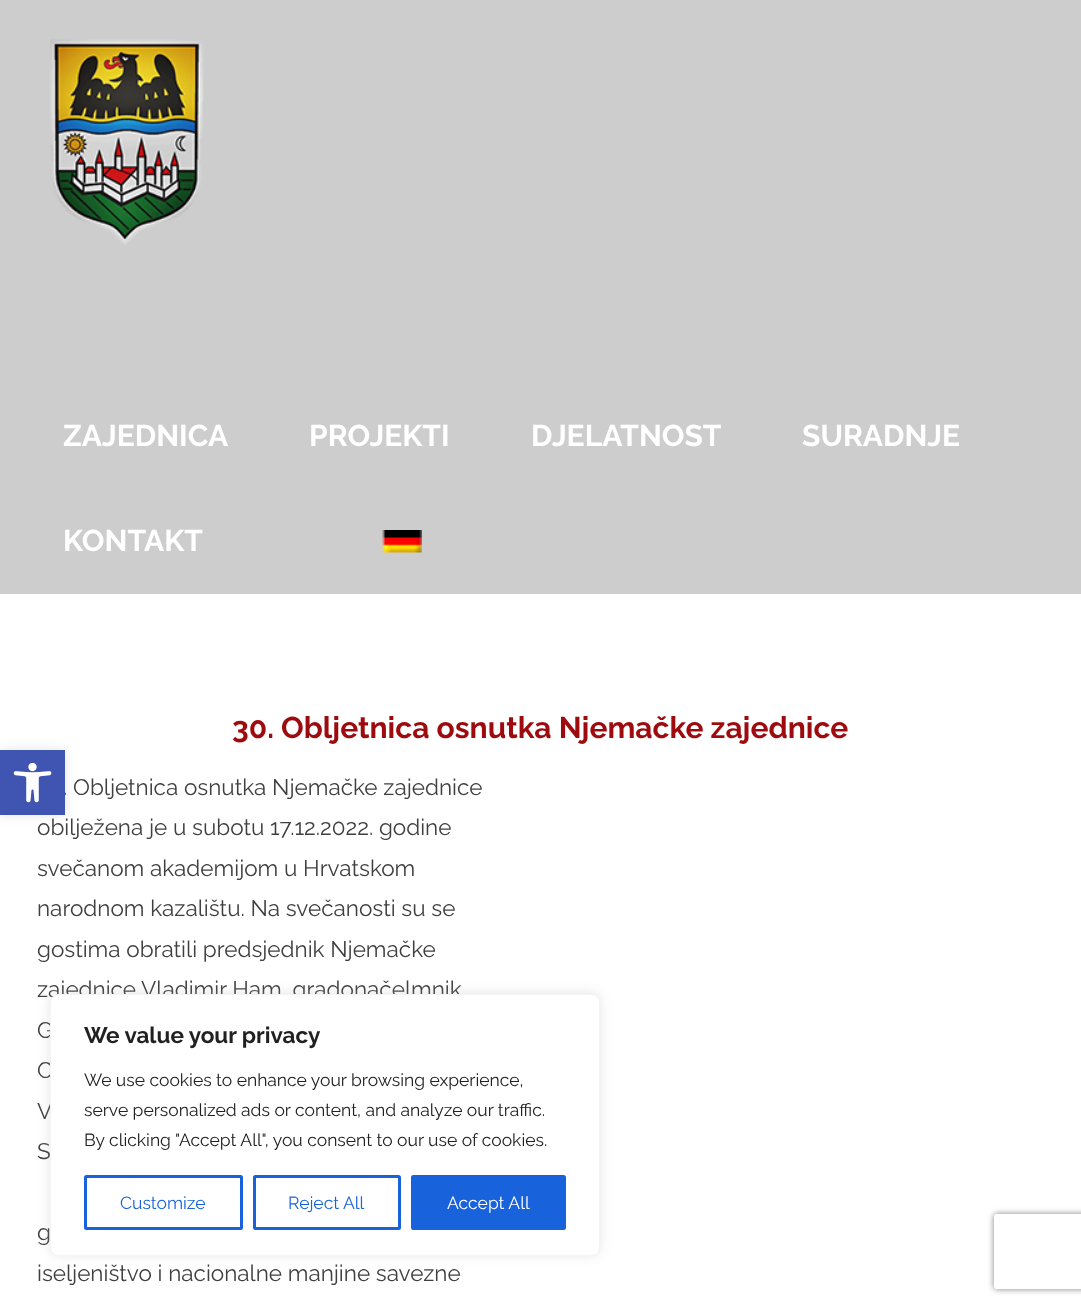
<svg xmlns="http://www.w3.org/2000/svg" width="1081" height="1306">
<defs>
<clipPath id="clip1"><path d="M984 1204h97v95h-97zm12.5 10h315c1.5 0 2.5 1 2.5 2.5v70c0 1.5-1 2.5-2.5 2.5h-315c-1.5 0-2.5-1-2.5-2.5v-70c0-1.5 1-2.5 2.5-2.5z" clip-rule="evenodd"/></clipPath>
</defs>
<rect width="100%" height="100%" fill="#fff"/>
<rect width="1081" height="594" fill="#cdcdcd"/>
<image x="50" y="39" width="154" height="206" href="media/1.png"/>
<text x="63" y="446" style="font-family:Raleway;font-size:30px;font-weight:bold;fill:#fff">ZAJEDNICA</text>
<text x="309" y="446" style="font-family:Raleway;font-size:30px;font-weight:bold;fill:#fff">PROJEKTI</text>
<text x="531" y="446" style="font-family:Raleway;font-size:30px;font-weight:bold;fill:#fff">DJELATNOST</text>
<text x="802" y="446" style="font-family:Raleway;font-size:30px;font-weight:bold;fill:#fff">SURADNJE</text>
<text x="63" y="551" style="font-family:Raleway;font-size:30px;font-weight:bold;fill:#fff">KONTAKT</text>
<image x="382" y="530" width="40" height="23" href="media/2.png"/>
<text x="232" y="738" style="font-family:Raleway;font-size:30px;font-weight:bold;fill:#9e0b0f">30. Obljetnica osnutka Njemačke zajednice</text>
<text x="63" y="795" style="font-family:Raleway;font-size:22.5px;fill:#3f3f3f">. Obljetnica osnutka Njemačke zajednice</text>
<text x="37" y="835" style="font-family:Raleway;font-size:22.5px;fill:#3f3f3f">obilježena je u subotu 17.12.2022. godine</text>
<text x="37" y="876" style="font-family:Raleway;font-size:22.5px;fill:#3f3f3f">svečanom akademijom u Hrvatskom</text>
<text x="37" y="916" style="font-family:Raleway;font-size:22.5px;fill:#3f3f3f">narodnom kazalištu. Na svečanosti su se</text>
<text x="37" y="957" style="font-family:Raleway;font-size:22.5px;fill:#3f3f3f">gostima obratili predsjednik Njemačke</text>
<text x="37" y="997" style="font-family:Raleway;font-size:22.5px;fill:#3f3f3f">zajednice Vladimir Ham, gradonačelmnik</text>
<text x="37" y="1038" style="font-family:Raleway;font-size:22.5px;fill:#3f3f3f">G</text>
<text x="37" y="1078" style="font-family:Raleway;font-size:22.5px;fill:#3f3f3f">O</text>
<text x="37" y="1119" style="font-family:Raleway;font-size:22.5px;fill:#3f3f3f">V</text>
<text x="37" y="1159" style="font-family:Raleway;font-size:22.5px;fill:#3f3f3f">S</text>
<text x="37" y="1240" style="font-family:Raleway;font-size:22.5px;fill:#3f3f3f">g</text>
<text x="37" y="1281" style="font-family:Raleway;font-size:22.5px;fill:#3f3f3f">iseljeništvo i nacionalne manjine savezne</text>
<rect y="750" width="65" height="65" fill="#0000001a" filter="blur(6px)"/>
<rect y="750" width="65" height="65" fill="#4054b2"/>
<image x="13" y="763" width="39" height="40" href="media/3.png"/>
<rect x="50" y="993" width="550" height="262" rx="8" fill="#acabab4d" filter="blur(6px)"/>
<rect x="50.5" y="994.5" width="549" height="261" rx="7.5" fill="#fff" stroke="#f4f4f4"/>
<text x="84" y="1043" style="font-family:Raleway;font-size:22.5px;font-weight:bold;fill:#212121">We value your privacy</text>
<text x="84" y="1086" style="font-family:Raleway;font-size:17.5px;fill:#212121">We use cookies to enhance your browsing experience,</text>
<text x="84" y="1116" style="font-family:Raleway;font-size:17.5px;fill:#212121">serve personalized ads or content, and analyze our traffic.</text>
<text x="84" y="1146" style="font-family:Raleway;font-size:17.5px;fill:#212121">By clicking "Accept All", you consent to our use of cookies.</text>
<rect x="85.5" y="1176.5" width="156" height="52" rx="1" fill="none" stroke="#1863dc" stroke-width="3"/>
<text x="120" y="1209" style="font-family:Raleway;font-size:17.5px;fill:#1863dc">Customize</text>
<rect x="254.5" y="1176.5" width="145" height="52" rx="1" fill="none" stroke="#1863dc" stroke-width="3"/>
<text x="288" y="1209" style="font-family:Raleway;font-size:17.5px;fill:#1863dc">Reject All</text>
<rect x="412.5" y="1176.5" width="152" height="52" rx="1" fill="#1863dc" stroke="#1863dc" stroke-width="3"/>
<text x="447" y="1209" style="font-family:Raleway;font-size:17.5px;fill:#fff">Accept All</text>
<g clip-path="url(#clip1)">
<rect x="994" y="1214" width="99" height="75" rx="2.5" fill="#808080" filter="blur(3px)"/>
</g>
</svg>
